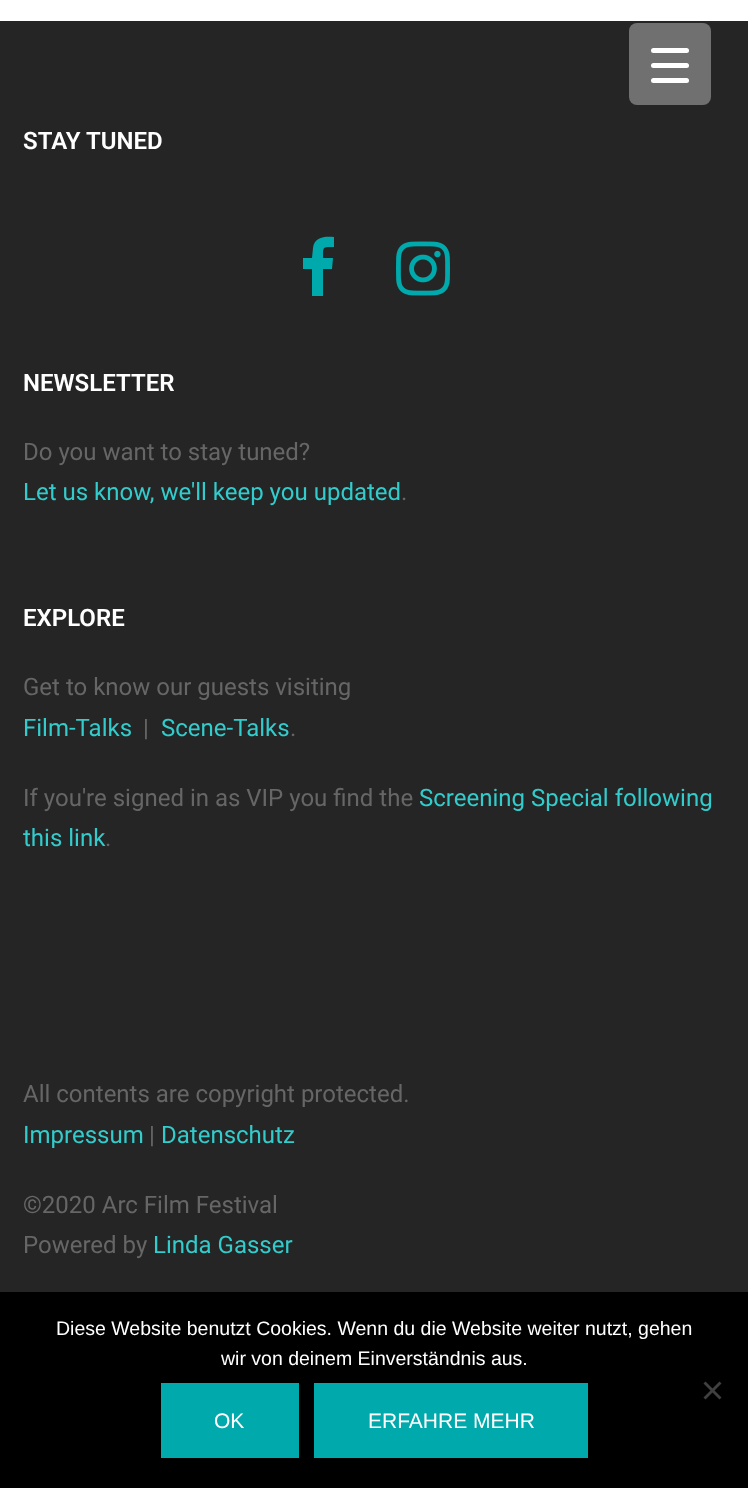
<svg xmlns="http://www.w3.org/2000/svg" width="748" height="1488">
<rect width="100%" height="100%" fill="#fff"/>
<rect y="21" width="748" height="1271" fill="#252525"/>
<rect x="629" y="23" width="82" height="82" rx="8" fill="#707070"/>
<rect x="651" y="63" width="38" height="5" rx="2.5" fill="#fff"/>
<rect x="651" y="48" width="38" height="5" rx="2.5" fill="#fff"/>
<rect x="651" y="78" width="38" height="5" rx="2.5" fill="#fff"/>
<text x="23" y="149" style="font-family:Roboto;font-size:24px;font-weight:600;fill:#fff">STAY TUNED</text>
<path d="M334 237v10c-12 0-11 0-11 11h10l-1 11h-9v27h-11v-27h-9v-11h9l1-10c1-11 12-12 21-11z" fill="#00a9ac"/>
<image x="396" y="241" width="54" height="55" href="media/1.png"/>
<text x="23" y="391" style="font-family:Roboto;font-size:24px;font-weight:600;fill:#fff">NEWSLETTER</text>
<text x="23" y="460" style="font-family:Roboto;font-size:24px;fill:#666">Do you want to stay tuned?</text>
<text x="23" y="500" style="font-family:Roboto;font-size:24px;fill:#3cc">Let us know, we'll keep you updated</text>
<text x="401" y="500" style="font-family:Roboto;font-size:24px;fill:#666">.</text>
<text x="23" y="626" style="font-family:Roboto;font-size:24px;font-weight:600;fill:#fff">EXPLORE</text>
<text x="23" y="695" style="font-family:Roboto;font-size:24px;fill:#666">Get to know our guests visiting</text>
<text x="23" y="736" style="font-family:Roboto;font-size:24px;fill:#3cc">Film-Talks</text>
<text x="143" y="736" style="font-family:Roboto;font-size:24px;fill:#666">|</text>
<text x="161" y="736" style="font-family:Roboto;font-size:24px;fill:#3cc">Scene-Talks</text>
<text x="290" y="736" style="font-family:Roboto;font-size:24px;fill:#666">.</text>
<text x="23" y="806" style="font-family:Roboto;font-size:24px;fill:#666">If you're signed in as VIP you find the</text>
<text x="419" y="806" style="font-family:Roboto;font-size:24px;fill:#3cc">Screening Special following</text>
<text x="23" y="846" style="font-family:Roboto;font-size:24px;fill:#3cc">this link</text>
<text x="105" y="846" style="font-family:Roboto;font-size:24px;fill:#666">.</text>
<text x="23" y="1102" style="font-family:Roboto;font-size:24px;fill:#666">All contents are copyright protected.</text>
<text x="23" y="1143" style="font-family:Roboto;font-size:24px;fill:#3cc">Impressum</text>
<text x="149" y="1143" style="font-family:Roboto;font-size:24px;fill:#666">|</text>
<text x="161" y="1143" style="font-family:Roboto;font-size:24px;fill:#3cc">Datenschutz</text>
<text x="23" y="1213" style="font-family:Roboto;font-size:24px;fill:#666">©2020 Arc Film Festival</text>
<text x="23" y="1253" style="font-family:Roboto;font-size:24px;fill:#666">Powered by</text>
<text x="153" y="1253" style="font-family:Roboto;font-size:24px;fill:#3cc">Linda Gasser</text>
<rect y="1292" width="748" height="196" fill="#000"/>
<text x="56" y="1335" style="font-family:Liberation Sans;font-size:19.5px;fill:#fff">Diese Website benutzt Cookies. Wenn du die Website weiter nutzt, gehen</text>
<text x="221" y="1365" style="font-family:Liberation Sans;font-size:19.5px;fill:#fff">wir von deinem Einverständnis aus.</text>
<path d="M719.5 1381.5l2 2l-16 16l-2-2z" fill="#404040"/>
<path d="M703.5 1383.5l2-2l16 16l-2 2z" fill="#404040"/>
<rect x="161" y="1383" width="138" height="75" fill="#00a9ac"/>
<text x="214" y="1428" style="font-family:Liberation Sans;font-size:21px;fill:#fff">OK</text>
<rect x="314" y="1383" width="274" height="75" fill="#00a9ac"/>
<text x="368" y="1428" style="font-family:Liberation Sans;font-size:21px;fill:#fff">ERFAHRE MEHR</text>
</svg>
